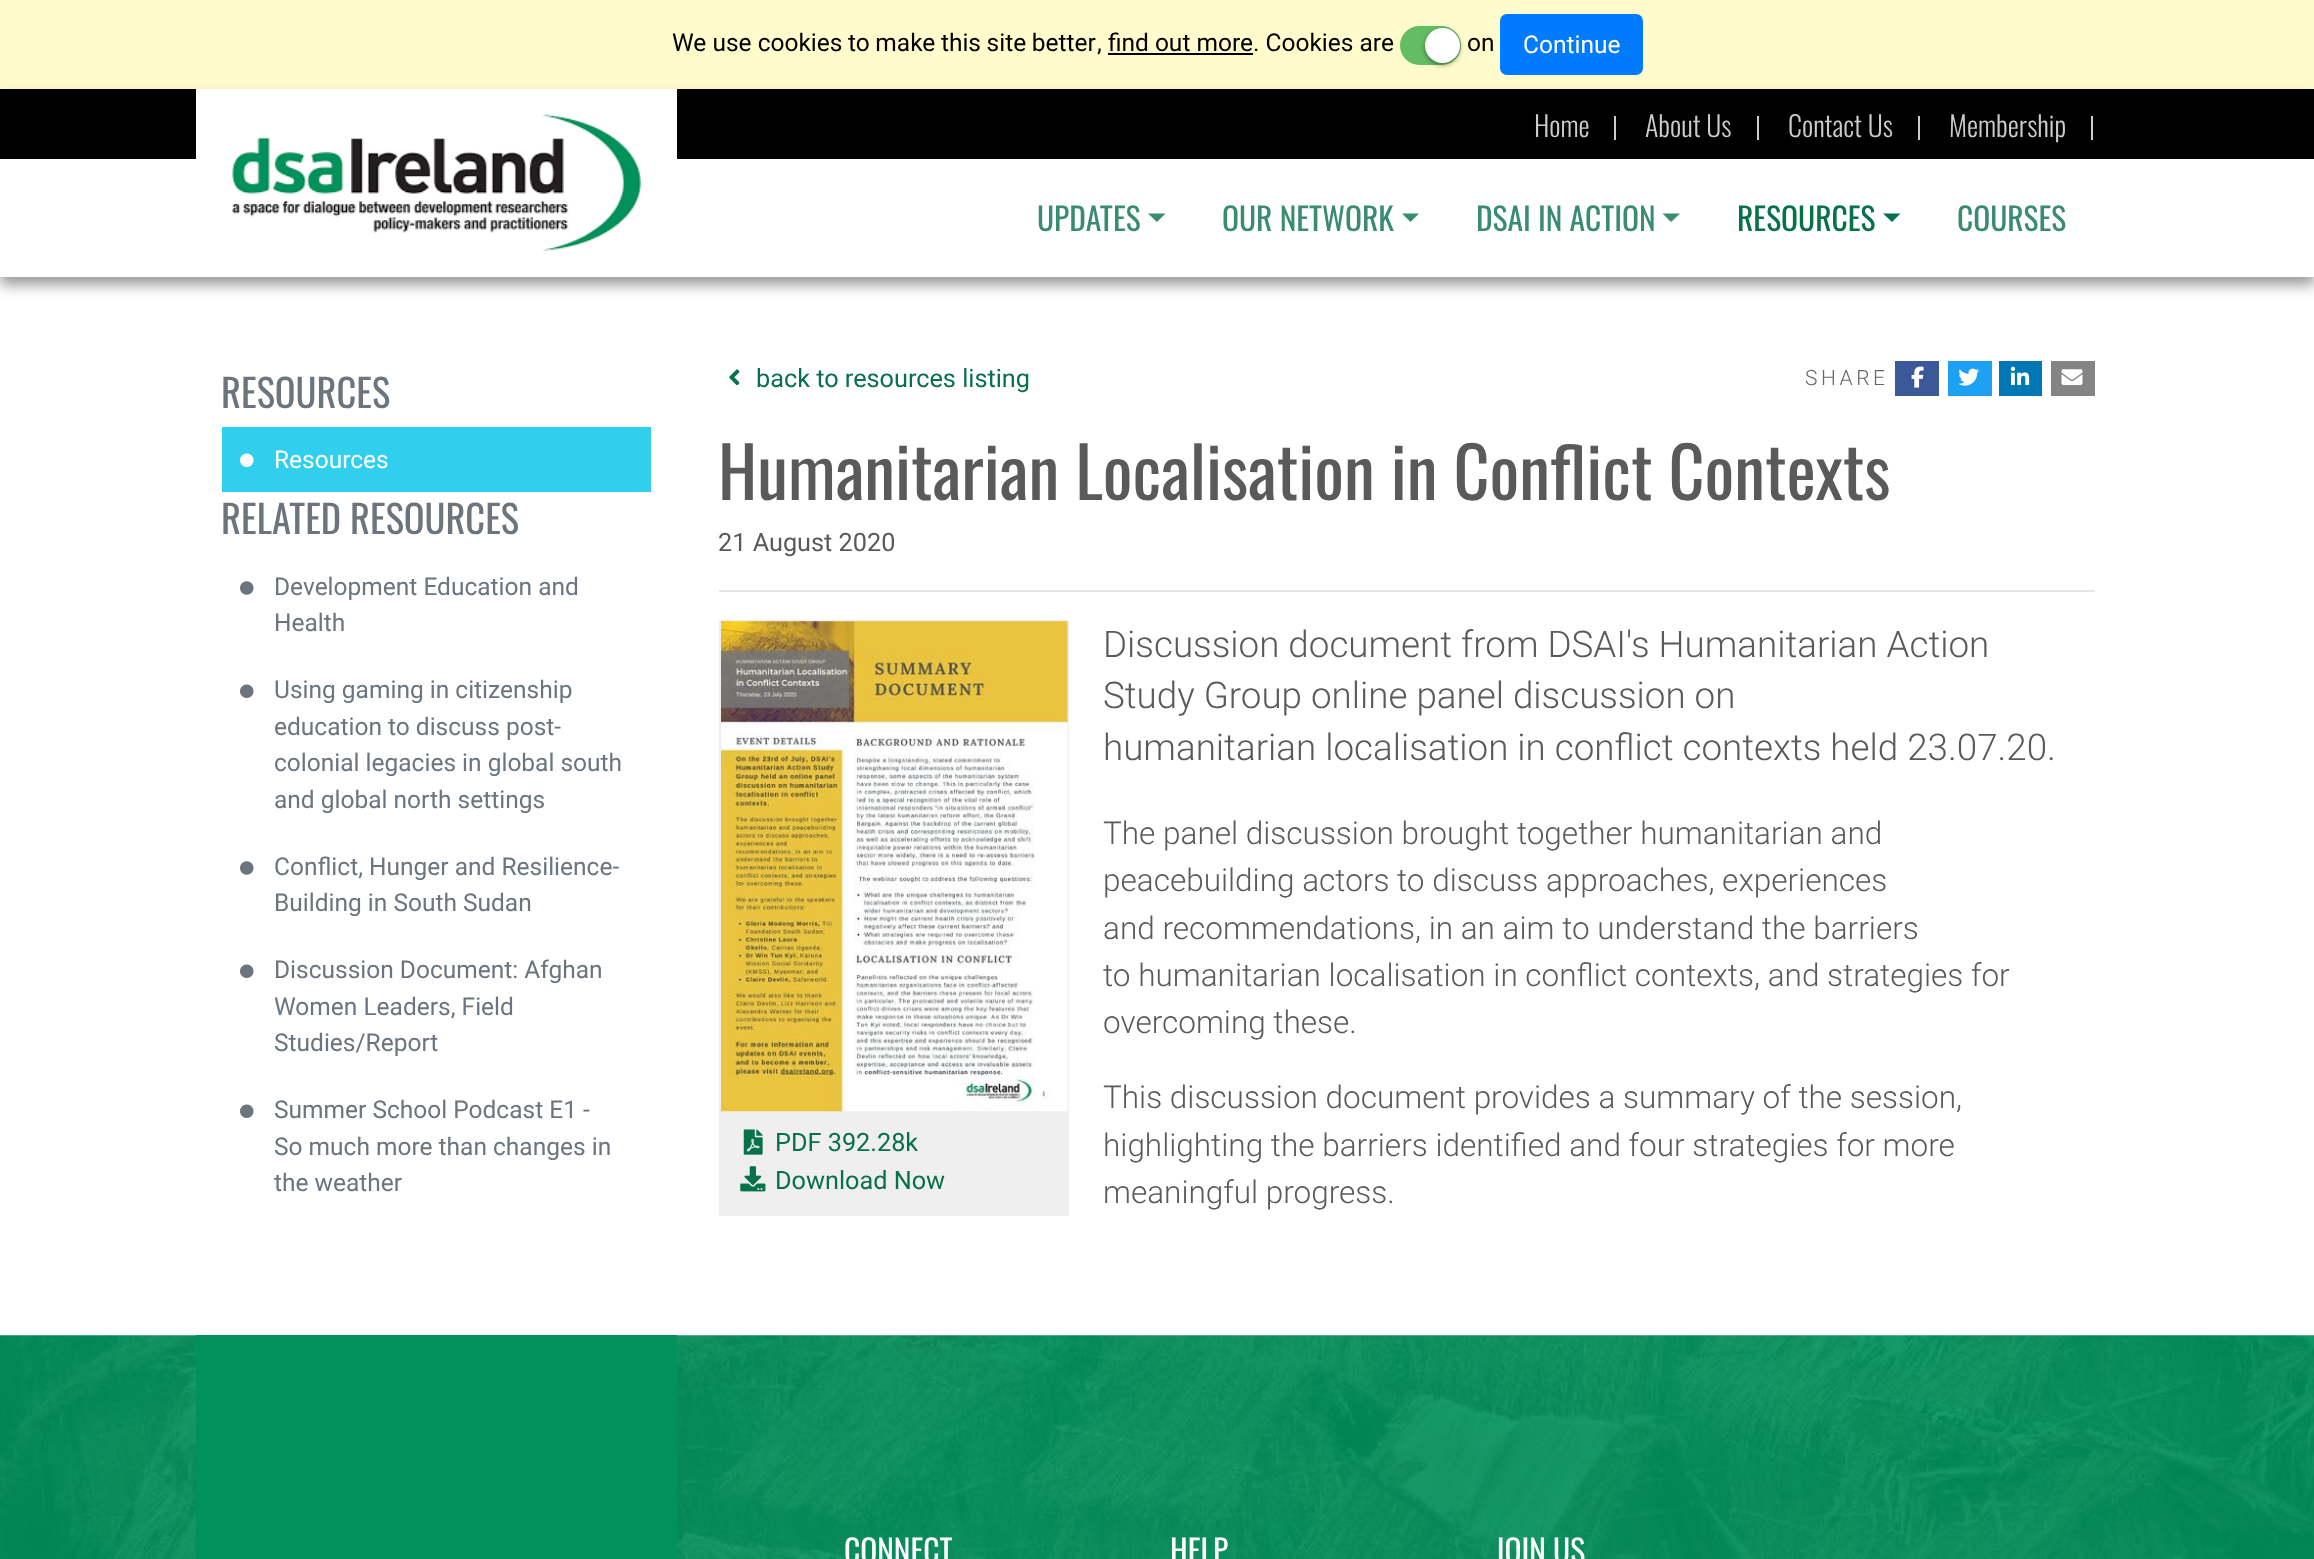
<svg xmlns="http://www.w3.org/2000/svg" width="2314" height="1559">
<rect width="100%" height="100%" fill="#fff"/>
<rect width="2314" height="89" fill="#fffbcc"/>
<text x="672" y="51" style="font-family:Roboto;font-size:24.5px;fill:#000">We use cookies</text>
<text x="848" y="51" word-spacing="-0.5" style="font-family:Roboto;font-size:24.5px;fill:#000">to make this site better</text>
<text x="1097" y="51" style="font-family:Roboto;font-size:24.5px;fill:#000">, find out more. Cookies are</text>
<rect x="1108" y="53" width="145" height="2" fill="#000"/>
<rect x="1401" y="27" width="59" height="37" rx="18.5" fill="#64bd63" stroke="#64bd63" stroke-width="2"/>
<rect x="1425" y="30" width="35" height="35" rx="17.5" fill="#00000066" filter="blur(2.5px)"/>
<circle cx="1442.5" cy="45.5" r="17.5" fill="#fff"/>
<text x="1467" y="51" style="font-family:Roboto;font-size:24.5px;fill:#000">on</text>
<rect x="1501" y="15" width="141" height="59" rx="6" fill="#007bff" stroke="#007bff" stroke-width="2"/>
<text x="1523" y="53" style="font-family:Roboto;font-size:24.5px;fill:#fff">Continue</text>
<rect y="98" width="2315" height="187" fill="#999" filter="blur(7px)"/>
<rect y="89" width="2314" height="70" fill="#000"/>
<rect x="196" y="89" width="481" height="70" fill="#fff"/>
<rect y="159" width="2314" height="118" fill="#fff"/>
<image x="232" y="114" width="410" height="138" href="media/1.png"/>
<text x="1534" y="137" style="font-family:Oswald;font-size:28px;font-weight:300;fill:#ccc">Home</text>
<rect x="1614" y="116" width="2" height="24" fill="#ccc"/>
<text x="1645" y="137" style="font-family:Oswald;font-size:28px;font-weight:300;fill:#ccc">About Us</text>
<rect x="1757" y="116" width="2" height="24" fill="#ccc"/>
<text x="1788" y="137" style="font-family:Oswald;font-size:28px;font-weight:300;fill:#ccc">Contact Us</text>
<rect x="1918" y="116" width="2" height="24" fill="#ccc"/>
<text x="1949" y="137" style="font-family:Oswald;font-size:28px;font-weight:300;fill:#ccc">Membership</text>
<rect x="2091" y="116" width="2" height="24" fill="#ccc"/>
<text x="1037" y="231" style="font-family:Oswald;font-size:31.5px;fill:#398d6e">UPDATES</text>
<path d="M1148 213.5h17.5l-8.5 8.5z" fill="#398d6e"/>
<text x="1222" y="231" style="font-family:Oswald;font-size:31.5px;fill:#398d6e">OUR NETWORK</text>
<path d="M1402 213.5h17l-8.5 8.5z" fill="#398d6e"/>
<text x="1476" y="231" style="font-family:Oswald;font-size:31.5px;fill:#398d6e">DSAI IN ACTION</text>
<path d="M1662.5 213.5h17.5l-9 8.5z" fill="#398d6e"/>
<text x="1737" y="231" style="font-family:Oswald;font-size:31.5px;fill:#07714a">RESOURCES</text>
<path d="M1883 213.5h17.5l-8.5 8.5z" fill="#07714a"/>
<text x="1957" y="231" style="font-family:Oswald;font-size:31.5px;fill:#398d6e">COURSES</text>
<text x="221" y="408" style="font-family:Oswald;font-size:38.5px;fill:#6c757d">RESOURCES</text>
<rect x="222" y="427" width="429" height="65" fill="#2fcfed"/>
<image x="240" y="453" width="14" height="14" href="media/2.png"/>
<text x="274" y="468" style="font-family:Roboto;font-size:24.5px;fill:#fff">Resources</text>
<text x="221" y="534" style="font-family:Oswald;font-size:38.5px;fill:#6c757d">RELATED RESOURCES</text>
<image x="240" y="581" width="14" height="14" href="media/3.png"/>
<text x="274" y="595" style="font-family:Roboto;font-size:24.5px;fill:#6c757d">Development Education and</text>
<text x="274" y="631" style="font-family:Roboto;font-size:24.5px;fill:#6c757d">Health</text>
<image x="240" y="684" width="14" height="14" href="media/4.png"/>
<text x="274" y="698" style="font-family:Roboto;font-size:24.5px;fill:#6c757d">Using gaming in citizenship</text>
<text x="274" y="735" style="font-family:Roboto;font-size:24.5px;fill:#6c757d">education to discuss post-</text>
<text x="274" y="771" style="font-family:Roboto;font-size:24.5px;fill:#6c757d">colonial legacies in global south</text>
<text x="274" y="808" style="font-family:Roboto;font-size:24.5px;fill:#6c757d">and global north settings</text>
<image x="240" y="861" width="14" height="14" href="media/3.png"/>
<text x="274" y="875" style="font-family:Roboto;font-size:24.5px;fill:#6c757d">Conflict, Hunger and Resilience-</text>
<text x="274" y="911" style="font-family:Roboto;font-size:24.5px;fill:#6c757d">Building in South Sudan</text>
<image x="240" y="964" width="14" height="14" href="media/4.png"/>
<text x="274" y="978" style="font-family:Roboto;font-size:24.5px;fill:#6c757d">Discussion Document: Afghan</text>
<text x="274" y="1015" style="font-family:Roboto;font-size:24.5px;fill:#6c757d">Women Leaders, Field</text>
<text x="274" y="1051" style="font-family:Roboto;font-size:24.5px;fill:#6c757d">Studies/Report</text>
<image x="240" y="1104" width="14" height="14" href="media/4.png"/>
<text x="274" y="1118" style="font-family:Roboto;font-size:24.5px;fill:#6c757d">Summer School Podcast E1 -</text>
<text x="274" y="1155" style="font-family:Roboto;font-size:24.5px;fill:#6c757d">So much more than changes in</text>
<text x="274" y="1191" style="font-family:Roboto;font-size:24.5px;fill:#6c757d">the weather</text>
<image x="729" y="369" width="11" height="17" href="media/5.png"/>
<text x="756" y="387" style="font-family:Roboto;font-size:25.25px;fill:#07714a">back to resources listing</text>
<text x="1805" y="385" style="font-family:Roboto;font-size:21px;font-weight:300;letter-spacing:3.5px;fill:#666">SHARE</text>
<rect x="1895" y="361" width="44" height="35" fill="#3b5998"/>
<image x="1911" y="366" width="13" height="22" href="media/6.png"/>
<rect x="1948" y="361" width="44" height="35" fill="#1da1f2"/>
<image x="1958" y="368" width="22" height="18" href="media/7.png"/>
<rect x="1999" y="361" width="43" height="35" fill="#0077b5"/>
<image x="2010" y="366" width="20" height="19" href="media/8.png"/>
<rect x="2051" y="361" width="44" height="35" fill="#848484"/>
<image x="2061" y="369" width="22" height="16" href="media/9.png"/>
<text x="718" y="500" style="font-family:Oswald;font-size:70px;fill:#5a5a5a">Humanitarian Localisation in Conflict Contexts</text>
<text x="718" y="551" style="font-family:Roboto;font-size:25.25px;fill:#5a5a5a">21 August 2020</text>
<rect x="719" y="590" width="1376" height="2" fill="#e6e6e6"/>
<text x="1103" y="657" style="font-family:Roboto;font-size:36.75px;font-weight:300;fill:#5a5a5a">Discussion document from DSAI's Humanitarian Action</text>
<text x="1103" y="708" style="font-family:Roboto;font-size:36.75px;font-weight:300;fill:#5a5a5a">Study Group online panel discussion on</text>
<text x="1103" y="760" style="font-family:Roboto;font-size:36.75px;font-weight:300;fill:#5a5a5a">humanitarian localisation in conflict contexts held 23.07.20.</text>
<text x="1103" y="844" style="font-family:Roboto;font-size:31.5px;font-weight:300;fill:#5a5a5a">The panel discussion brought together humanitarian and</text>
<text x="1103" y="891" style="font-family:Roboto;font-size:31.5px;font-weight:300;fill:#5a5a5a">peacebuilding actors to discuss approaches, experiences</text>
<text x="1103" y="939" style="font-family:Roboto;font-size:31.5px;font-weight:300;fill:#5a5a5a">and recommendations, in an aim to understand the barriers</text>
<text x="1103" y="986" style="font-family:Roboto;font-size:31.5px;font-weight:300;fill:#5a5a5a">to humanitarian localisation in conflict contexts, and strategies for</text>
<text x="1103" y="1033" style="font-family:Roboto;font-size:31.5px;font-weight:300;fill:#5a5a5a">overcoming these.</text>
<rect x="719" y="620" width="350" height="596" fill="#efefef"/>
<image x="721" y="621" width="347" height="491" href="media/10.png"/>
<image x="743" y="1129" width="20" height="26" href="media/11.png"/>
<text x="775" y="1151" style="font-family:Roboto;font-size:25.25px;fill:#07714a">PDF 392.28k</text>
<image x="740" y="1166" width="26" height="26" href="media/12.png"/>
<text x="775" y="1189" style="font-family:Roboto;font-size:25.25px;fill:#07714a">Download Now</text>
<text x="1103" y="1108" style="font-family:Roboto;font-size:31.5px;font-weight:300;fill:#5a5a5a">This discussion document provides a summary of the session,</text>
<text x="1103" y="1156" style="font-family:Roboto;font-size:31.5px;font-weight:300;fill:#5a5a5a">highlighting the barriers identified and four strategies for more</text>
<text x="1103" y="1203" style="font-family:Roboto;font-size:31.5px;font-weight:300;fill:#5a5a5a">meaningful progress.</text>
<image x="0" y="1335" width="2314" height="224" href="media/13.png"/>
<rect x="196" y="1335" width="481" height="224" fill="#01915c"/>
<text x="844" y="1563" style="font-family:Oswald;font-size:31.5px;fill:#fff">CONNECT</text>
<text x="1170" y="1563" style="font-family:Oswald;font-size:31.5px;fill:#fff">HELP</text>
<text x="1495" y="1563" style="font-family:Oswald;font-size:31.5px;fill:#fff">JOIN US</text>
</svg>
